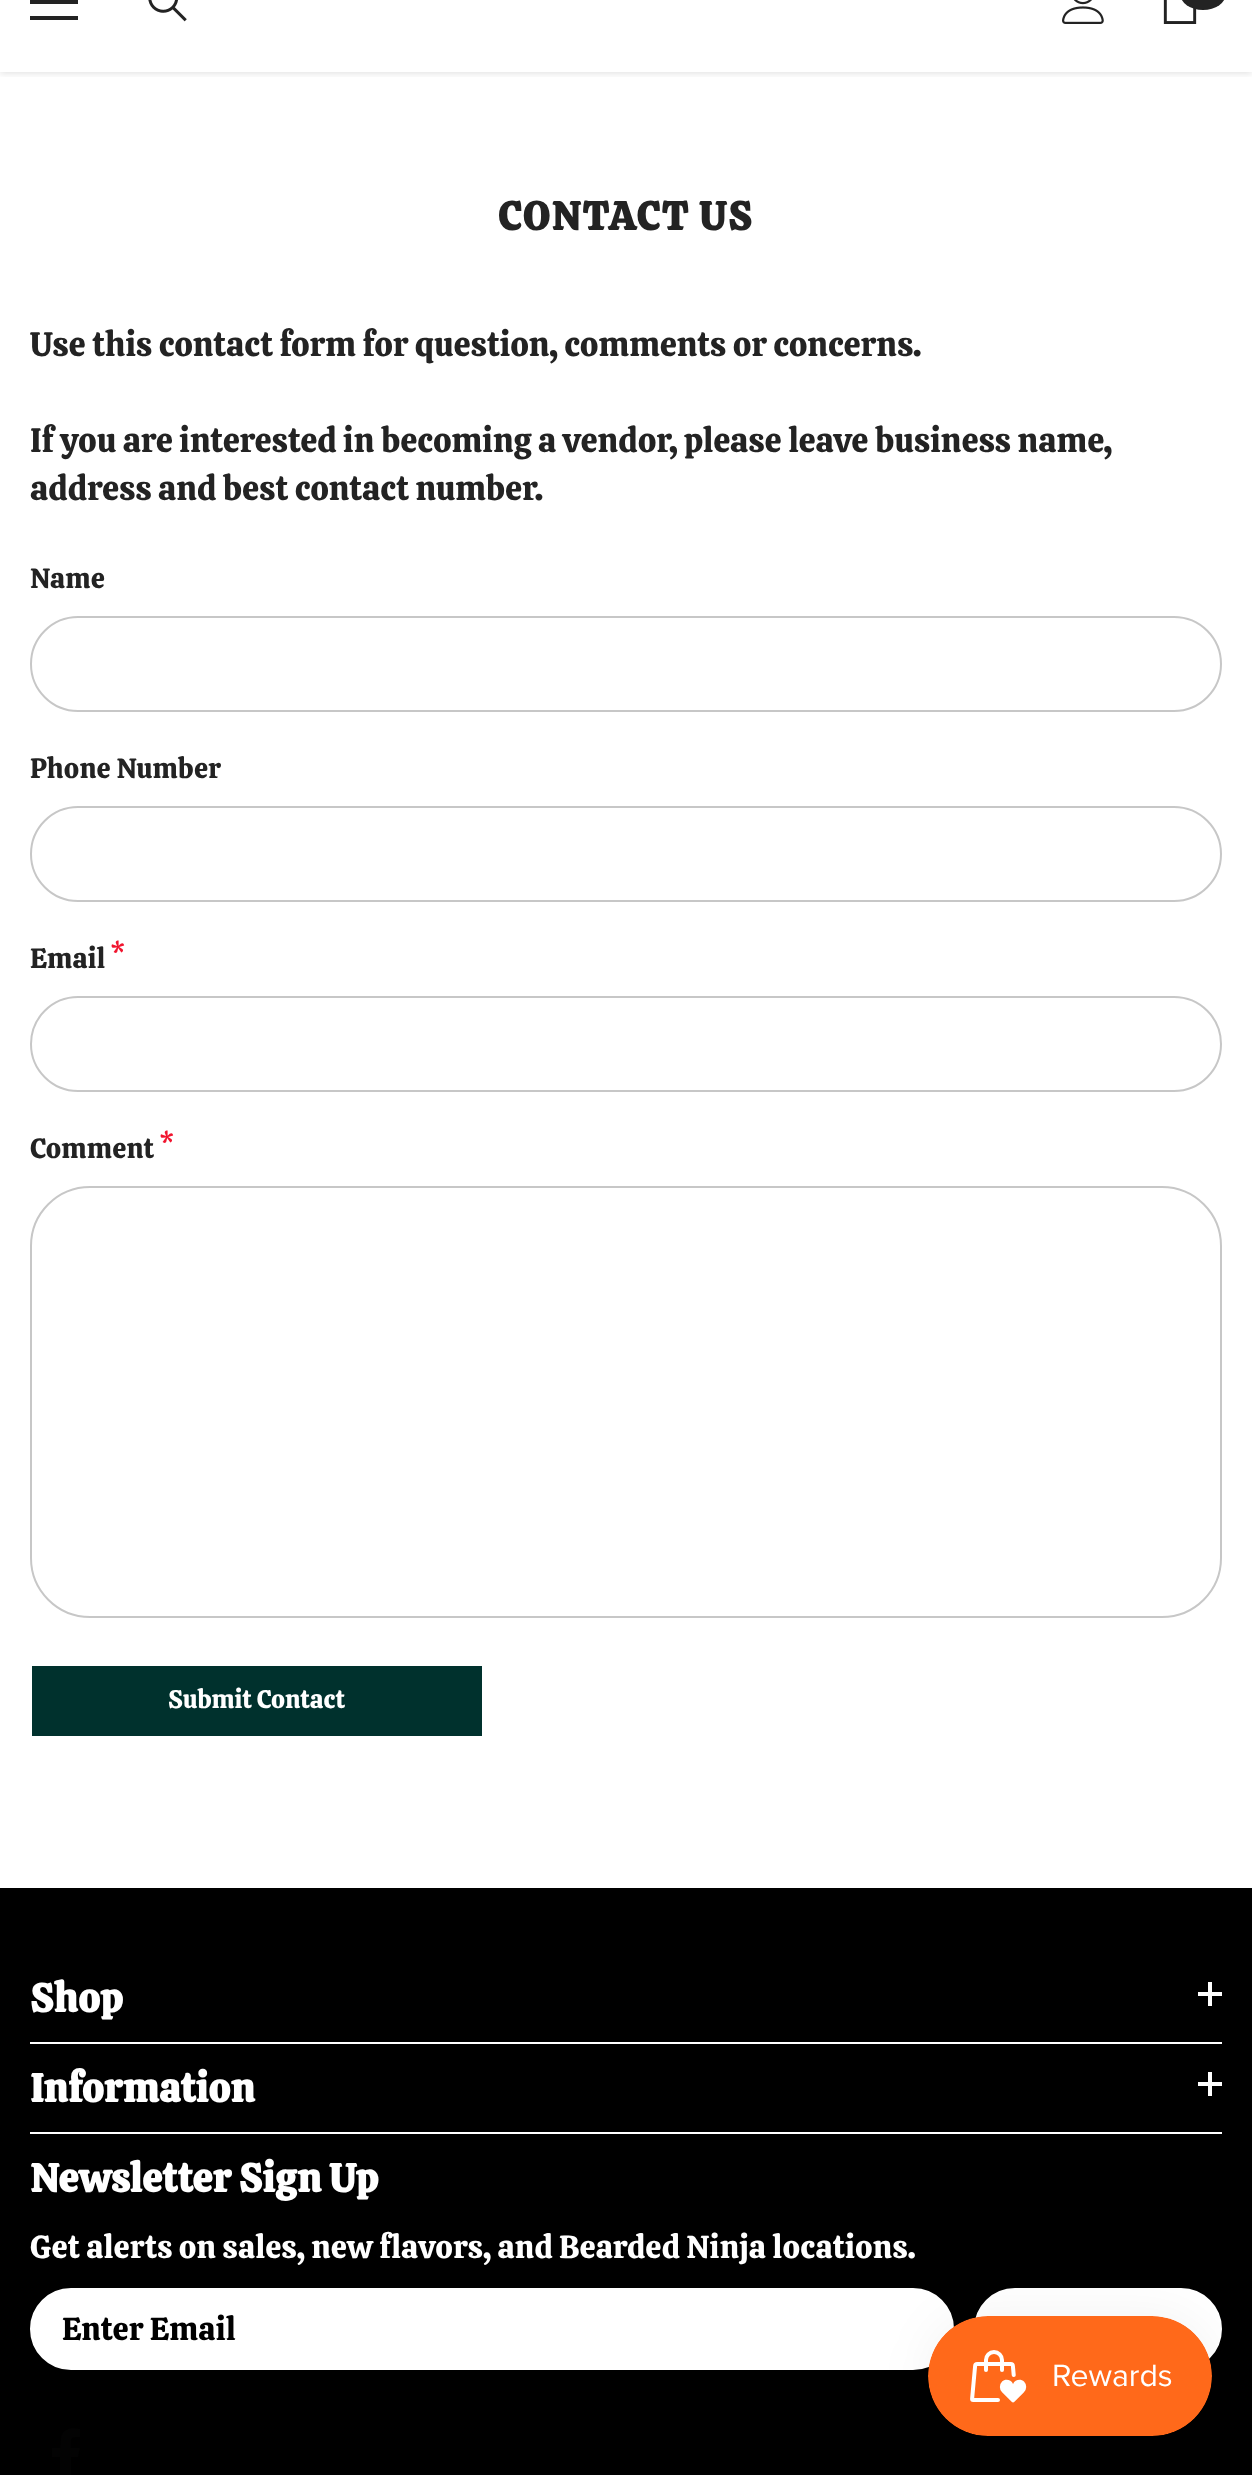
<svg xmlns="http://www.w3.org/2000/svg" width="1252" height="2475">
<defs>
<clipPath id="clip1"><rect x="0" y="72" width="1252" height="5"/></clipPath>
</defs>
<rect width="100%" height="100%" fill="#fff"/>
<g clip-path="url(#clip1)">
<rect y="-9" width="1252" height="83" fill="#0000001a" filter="blur(3px)"/>
</g>
<rect x="30" width="48" height="4" fill="#232323"/>
<rect x="30" y="16" width="48" height="4" fill="#232323"/>
<image x="148" y="0" width="39" height="22" href="media/1.png"/>
<image x="1062" y="0" width="42" height="24" href="media/2.png"/>
<image x="1163" y="0" width="34" height="24" href="media/3.png"/>
<rect x="1180" y="-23" width="46" height="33" rx="23" fill="#232323"/>
<text x="498" y="230" style="font-family:Calistoga;font-size:40px;font-weight:bold;letter-spacing:2px;fill:#232323">CONTACT US</text>
<text x="30" y="356" style="font-family:Calistoga;font-size:34px;fill:#232323">Use this contact form for question, comments or concerns.</text>
<text x="30" y="452" style="font-family:Calistoga;font-size:34px;fill:#232323">If you are interested in becoming a vendor, please leave business name,</text>
<text x="30" y="500" style="font-family:Calistoga;font-size:34px;fill:#232323">address and best contact number.</text>
<text x="30" y="588" style="font-family:Calistoga;font-size:28px;letter-spacing:0.2px;fill:#232323">Name</text>
<rect x="31" y="617" width="1190" height="94" rx="47" fill="none" stroke="#c7c7c7" stroke-width="2"/>
<text x="30" y="778" style="font-family:Calistoga;font-size:28px;letter-spacing:0.2px;fill:#232323">Phone Number</text>
<rect x="31" y="807" width="1190" height="94" rx="47" fill="none" stroke="#c7c7c7" stroke-width="2"/>
<text x="30" y="968" style="font-family:Calistoga;font-size:28px;letter-spacing:0.2px;fill:#232323">Email</text>
<text x="111" y="968" style="font-family:Calistoga;font-size:28px;letter-spacing:0.2px;fill:#f1152f">*</text>
<rect x="31" y="997" width="1190" height="94" rx="47" fill="none" stroke="#c7c7c7" stroke-width="2"/>
<text x="160" y="1158" style="font-family:Calistoga;font-size:28px;letter-spacing:0.2px;fill:#f1152f">*</text>
<text x="30" y="1158" style="font-family:Calistoga;font-size:28px;letter-spacing:0.2px;fill:#232323">Comment</text>
<rect x="31" y="1187" width="1190" height="430" rx="59" fill="none" stroke="#c7c7c7" stroke-width="2"/>
<rect x="32" y="1666" width="450" height="70" fill="#00312d"/>
<text x="168" y="1708" style="font-family:Calistoga;font-size:25.5px;fill:#fff">Submit Contact</text>
<rect y="1888" width="1252" height="587" fill="#000"/>
<rect x="30" y="2042" width="1192" height="2" fill="#fff"/>
<text x="30" y="2012" style="font-family:Calistoga;font-size:40px;font-weight:bold;letter-spacing:0.2px;fill:#fff">Shop</text>
<rect x="1208" y="1982" width="4" height="24" fill="#fff"/>
<rect x="1198" y="1992" width="24" height="4" fill="#fff"/>
<rect x="30" y="2132" width="1192" height="2" fill="#fff"/>
<text x="30" y="2102" style="font-family:Calistoga;font-size:40px;font-weight:bold;letter-spacing:0.2px;fill:#fff">Information</text>
<rect x="1208" y="2072" width="4" height="24" fill="#fff"/>
<rect x="1198" y="2082" width="24" height="4" fill="#fff"/>
<text x="30" y="2192" style="font-family:Calistoga;font-size:40px;font-weight:bold;letter-spacing:0.2px;fill:#fff">Newsletter Sign Up</text>
<text x="30" y="2258" style="font-family:Calistoga;font-size:32px;letter-spacing:0.2px;fill:#fff">Get alerts on sales, new flavors, and Bearded Ninja locations.</text>
<rect x="31" y="2289" width="922" height="80" rx="40" fill="#fff" stroke="#fff" stroke-width="2"/>
<text x="62" y="2340" style="font-family:Calistoga;font-size:32px;letter-spacing:0.2px;fill:#000">Enter Email</text>
<rect x="975" y="2289" width="246" height="80" rx="40" fill="#fff" stroke="#fff" stroke-width="2"/>
<path d="M78 2457l2-9h-9c0-9-2-11 9-11v-8c-8-2-18-1-19 9l-1 10h-8v9h8v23h11v-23z" fill="#030303"/>
<rect x="928" y="2316" width="284" height="120" rx="60" fill="#0000000d" filter="blur(25px)"/>
<image x="928" y="2316" width="284" height="120" href="media/4.png"/>
</svg>
